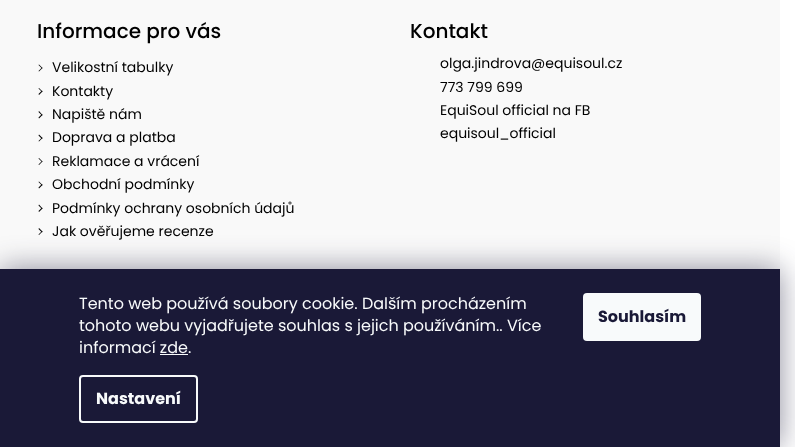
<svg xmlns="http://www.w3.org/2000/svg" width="795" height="447">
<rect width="100%" height="100%" fill="#fff"/>
<rect width="780" height="269" fill="#f9f9f9"/>
<text x="37" y="38" style="font-family:Poppins;font-size:20px;font-weight:500;fill:#000">Informace pro vás</text>
<path d="M38.5 65l.5-.5l3.5 3.5l-.5 .5z" fill="#000"/>
<path d="M38.5 71l3.5-3.5l.5 .5l-3.5 3.5z" fill="#000"/>
<text x="52" y="72" style="font-family:Poppins;font-size:14px;fill:#000">Velikostní tabulky</text>
<path d="M38.5 88.5l.5-.5l3.5 3.5l-.5 .5z" fill="#000"/>
<path d="M38.5 94l3.5-3.5l.5 1l-3.5 3.5z" fill="#000"/>
<text x="52" y="96" style="font-family:Poppins;font-size:14px;fill:#000">Kontakty</text>
<path d="M38.5 112l.5-1l3.5 4l-.5 .5z" fill="#000"/>
<path d="M38.5 117.5l3.5-3.5l.5 1l-3.5 3.5z" fill="#000"/>
<text x="52" y="119" style="font-family:Poppins;font-size:14px;fill:#000">Napiště nám</text>
<path d="M38.5 135.5l.5-1l3.5 3.5l-.5 1z" fill="#000"/>
<path d="M38.5 141l3.5-3.5l.5 .5l-3.5 3.5z" fill="#000"/>
<text x="52" y="142" style="font-family:Poppins;font-size:14px;fill:#000">Doprava a platba</text>
<path d="M38.5 158.5l.5-.5l3.5 3.5l-.5 .5z" fill="#000"/>
<path d="M38.5 164.5l3.5-3.5l.5 .5l-3.5 3.5z" fill="#000"/>
<text x="52" y="166" style="font-family:Poppins;font-size:14px;fill:#000">Reklamace a vrácení</text>
<path d="M38.5 182l.5-.5l3.5 3.5l-.5 .5z" fill="#000"/>
<path d="M38.5 187.5l3.5-3.5l.5 1l-3.5 3.5z" fill="#000"/>
<text x="52" y="189" style="font-family:Poppins;font-size:14px;fill:#000">Obchodní podmínky</text>
<path d="M38.5 205.5l.5-1l3.5 4l-.5 .5z" fill="#000"/>
<path d="M38.5 211l3.5-3.5l.5 1l-3.5 3.5z" fill="#000"/>
<text x="52" y="213" style="font-family:Poppins;font-size:14px;fill:#000">Podmínky ochrany osobních údajů</text>
<path d="M38.5 229l.5-1l3.5 3.5l-.5 1z" fill="#000"/>
<path d="M38.5 234.5l3.5-3.5l.5 .5l-3.5 3.5z" fill="#000"/>
<text x="52" y="236" style="font-family:Poppins;font-size:14px;fill:#000">Jak ověřujeme recenze</text>
<text x="410" y="38" style="font-family:Poppins;font-size:20px;font-weight:500;fill:#000">Kontakt</text>
<text x="440" y="68" style="font-family:Poppins;font-size:14px;fill:#000">olga.jindrova@equisoul.cz</text>
<text x="440" y="92" style="font-family:Poppins;font-size:14px;fill:#000">773 799 699</text>
<text x="440" y="115" style="font-family:Poppins;font-size:14px;fill:#000">EquiSoul official na FB</text>
<text x="440" y="138" style="font-family:Poppins;font-size:14px;fill:#000">equisoul_official</text>
<rect y="269" width="780" height="178" fill="#1b193980" filter="blur(15px)"/>
<rect y="269" width="780" height="178" fill="#1a1937"/>
<text x="79" y="309" style="font-family:Poppins;font-size:16px;fill:#f8fafb">Tento web používá soubory cookie. Dalším procházením</text>
<text x="79" y="331" style="font-family:Poppins;font-size:16px;fill:#f8fafb">tohoto webu vyjadřujete souhlas s jejich používáním.. Více</text>
<text x="79" y="353" style="font-family:Poppins;font-size:16px;fill:#f8fafb">informací zde.</text>
<rect x="160" y="354" width="28" height="1" fill="#f8fafb"/>
<rect x="80" y="376" width="117" height="46" rx="3" fill="none" stroke="#f8fafb" stroke-width="2"/>
<text x="96" y="404" style="font-family:Poppins;font-size:16px;font-weight:bold;fill:#f8fafb">Nastavení</text>
<rect x="583" y="293" width="118" height="48" rx="4" fill="#f8fafb"/>
<text x="598" y="322" style="font-family:Poppins;font-size:16px;font-weight:bold;fill:#1a1937">Souhlasím</text>
</svg>
